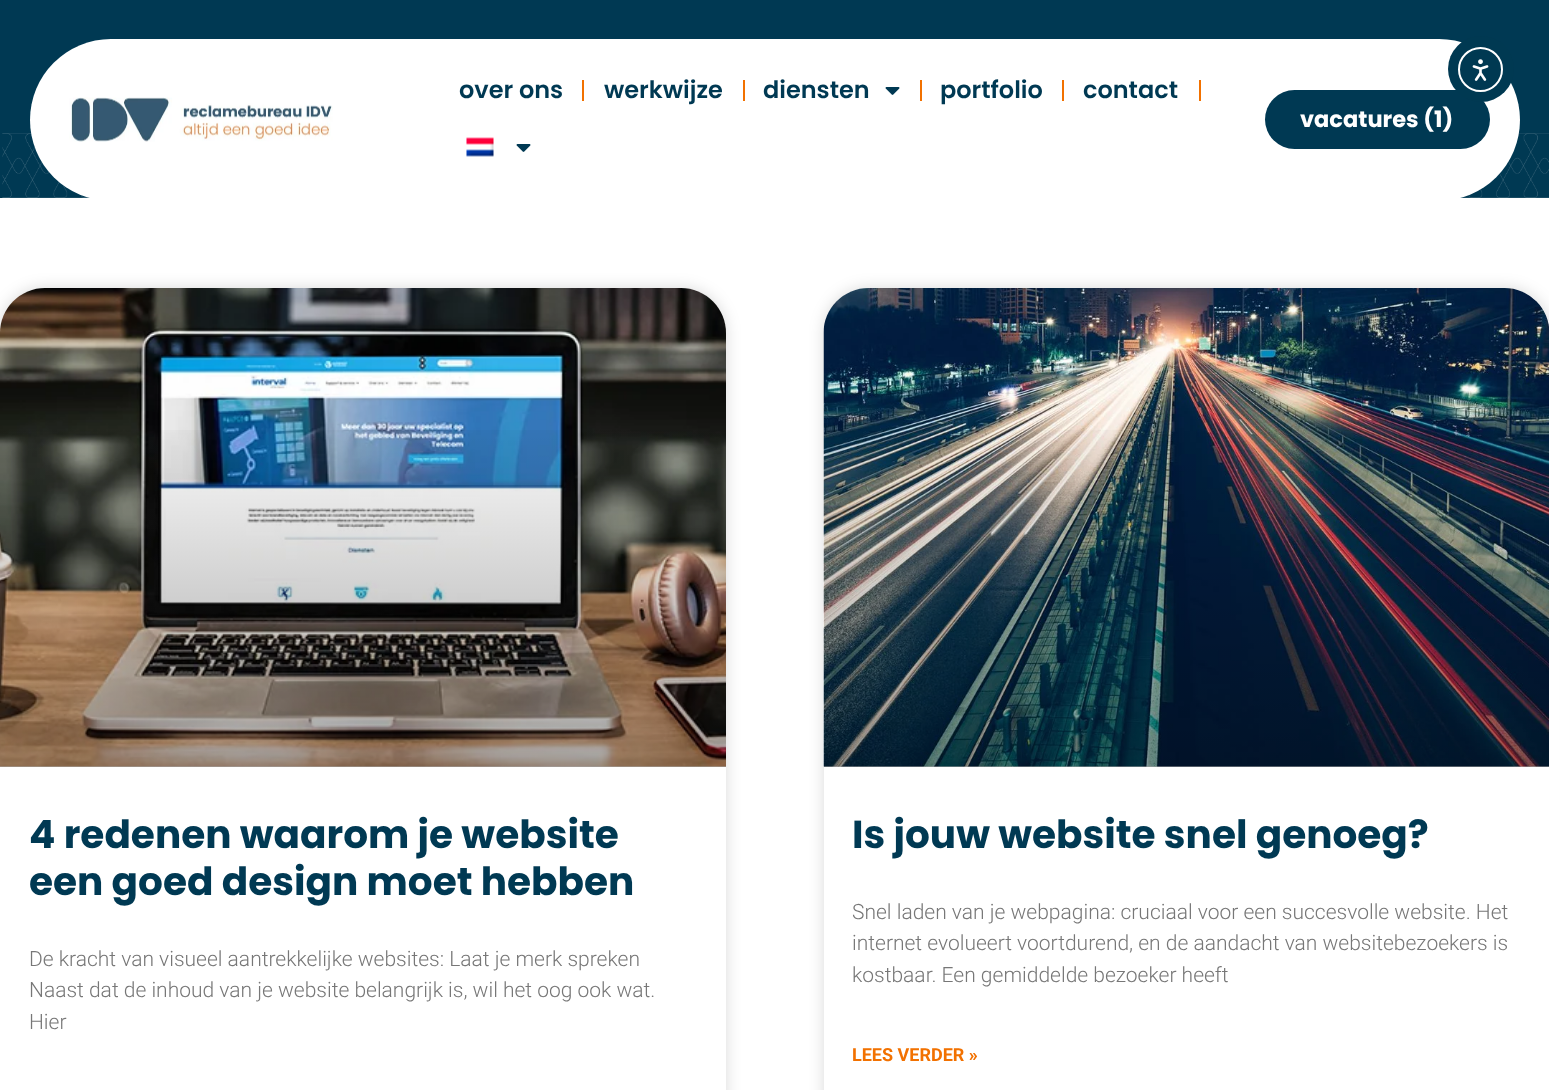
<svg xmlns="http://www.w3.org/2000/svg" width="1549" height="1090">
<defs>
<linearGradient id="g1" gradientUnits="userSpaceOnUse" x1="363" y1="767" x2="363" y2="288"><stop offset="0" stop-color="#000" stop-opacity="0.35"/><stop offset="0.75" stop-color="#000" stop-opacity="0"/></linearGradient>
<linearGradient id="g2" gradientUnits="userSpaceOnUse" x1="1187" y1="767" x2="1187" y2="288"><stop offset="0" stop-color="#000" stop-opacity="0.35"/><stop offset="0.75" stop-color="#000" stop-opacity="0"/></linearGradient>
</defs>
<rect width="100%" height="100%" fill="#fff"/>
<rect width="1549" height="198" fill="#003953"/>
<image x="2" y="133" width="1547" height="65" href="media/5.png"/>
<rect x="30" y="39" width="1490" height="162" rx="81" fill="#fff"/>
<text x="459" y="98" style="font-family:Poppins;font-size:24px;font-weight:600;fill:#003953">over ons</text>
<rect x="582" y="80" width="2" height="21" fill="#f27100"/>
<text x="604" y="98" style="font-family:Poppins;font-size:24px;font-weight:600;fill:#003953">werkwijze</text>
<rect x="743" y="80" width="2" height="21" fill="#f27100"/>
<text x="763" y="98" style="font-family:Poppins;font-size:24px;font-weight:600;fill:#003953">diensten</text>
<image x="885" y="87" width="15" height="8" href="media/1.png"/>
<rect x="920" y="80" width="2" height="21" fill="#f27100"/>
<text x="940" y="98" style="font-family:Poppins;font-size:24px;font-weight:600;fill:#003953">portfolio</text>
<rect x="1062" y="80" width="2" height="21" fill="#f27100"/>
<text x="1083" y="98" style="font-family:Poppins;font-size:24px;font-weight:600;fill:#003953">contact</text>
<rect x="1199" y="80" width="2" height="21" fill="#f27100"/>
<image x="466" y="137" width="28" height="20" href="media/2.png"/>
<image x="516" y="144" width="15" height="8" href="media/1.png"/>
<image x="69" y="97" width="264" height="45" href="media/3.png"/>
<rect x="1265" y="90" width="225" height="59" rx="29.5" fill="#003953"/>
<text x="1300" y="127" style="font-family:Poppins;font-size:22.5px;font-weight:bold;fill:#fff">vacatures (1)</text>
<circle cx="1481" cy="69" r="33" fill="#003952"/>
<circle cx="1480.5" cy="69.5" r="21.5" fill="none" stroke="#fff" stroke-width="2"/>
<image x="1472" y="59" width="17" height="22" href="media/4.png"/>
<rect y="288" width="726" height="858" rx="45" fill="#00000026" filter="blur(7.5px)"/>
<rect y="288" width="726" height="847" rx="45" fill="#fff"/>
<image x="0" y="288" width="726" height="479" href="media/6.png"/>
<rect y="430" width="726" height="337" fill="url(#g1)"/>
<text x="29" y="848" style="font-family:Poppins;font-size:39px;font-weight:bold;fill:#003953">4 redenen waarom je website</text>
<text x="29" y="895" style="font-family:Poppins;font-size:39px;font-weight:bold;fill:#003953">een goed design moet hebben</text>
<text x="29" y="966" style="font-family:Roboto;font-size:21px;font-weight:300;fill:#777">De kracht van visueel aantrekkelijke websites: Laat je merk spreken</text>
<text x="29" y="997" style="font-family:Roboto;font-size:21px;font-weight:300;fill:#777">Naast dat de inhoud van je website belangrijk is, wil het oog ook wat.</text>
<text x="29" y="1029" style="font-family:Roboto;font-size:21px;font-weight:300;fill:#777">Hier</text>
<rect x="824" y="288" width="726" height="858" rx="45" fill="#00000026" filter="blur(7.5px)"/>
<rect x="824" y="288" width="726" height="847" rx="45" fill="#fff"/>
<image x="823" y="288" width="726" height="479" href="media/7.png"/>
<rect x="824" y="430" width="725" height="337" fill="url(#g2)"/>
<text x="852" y="848" style="font-family:Poppins;font-size:39px;font-weight:bold;fill:#003953">Is jouw website snel genoeg?</text>
<text x="852" y="919" style="font-family:Roboto;font-size:21px;font-weight:300;fill:#777">Snel laden van je webpagina: cruciaal voor een succesvolle website. Het</text>
<text x="852" y="950" style="font-family:Roboto;font-size:21px;font-weight:300;fill:#777">internet evolueert voortdurend, en de aandacht van websitebezoekers is</text>
<text x="852" y="982" style="font-family:Roboto;font-size:21px;font-weight:300;fill:#777">kostbaar. Een gemiddelde bezoeker heeft</text>
<text x="852" y="1061" style="font-family:Roboto;font-size:18px;font-weight:bold;fill:#f27100">LEES VERDER »</text>
</svg>
